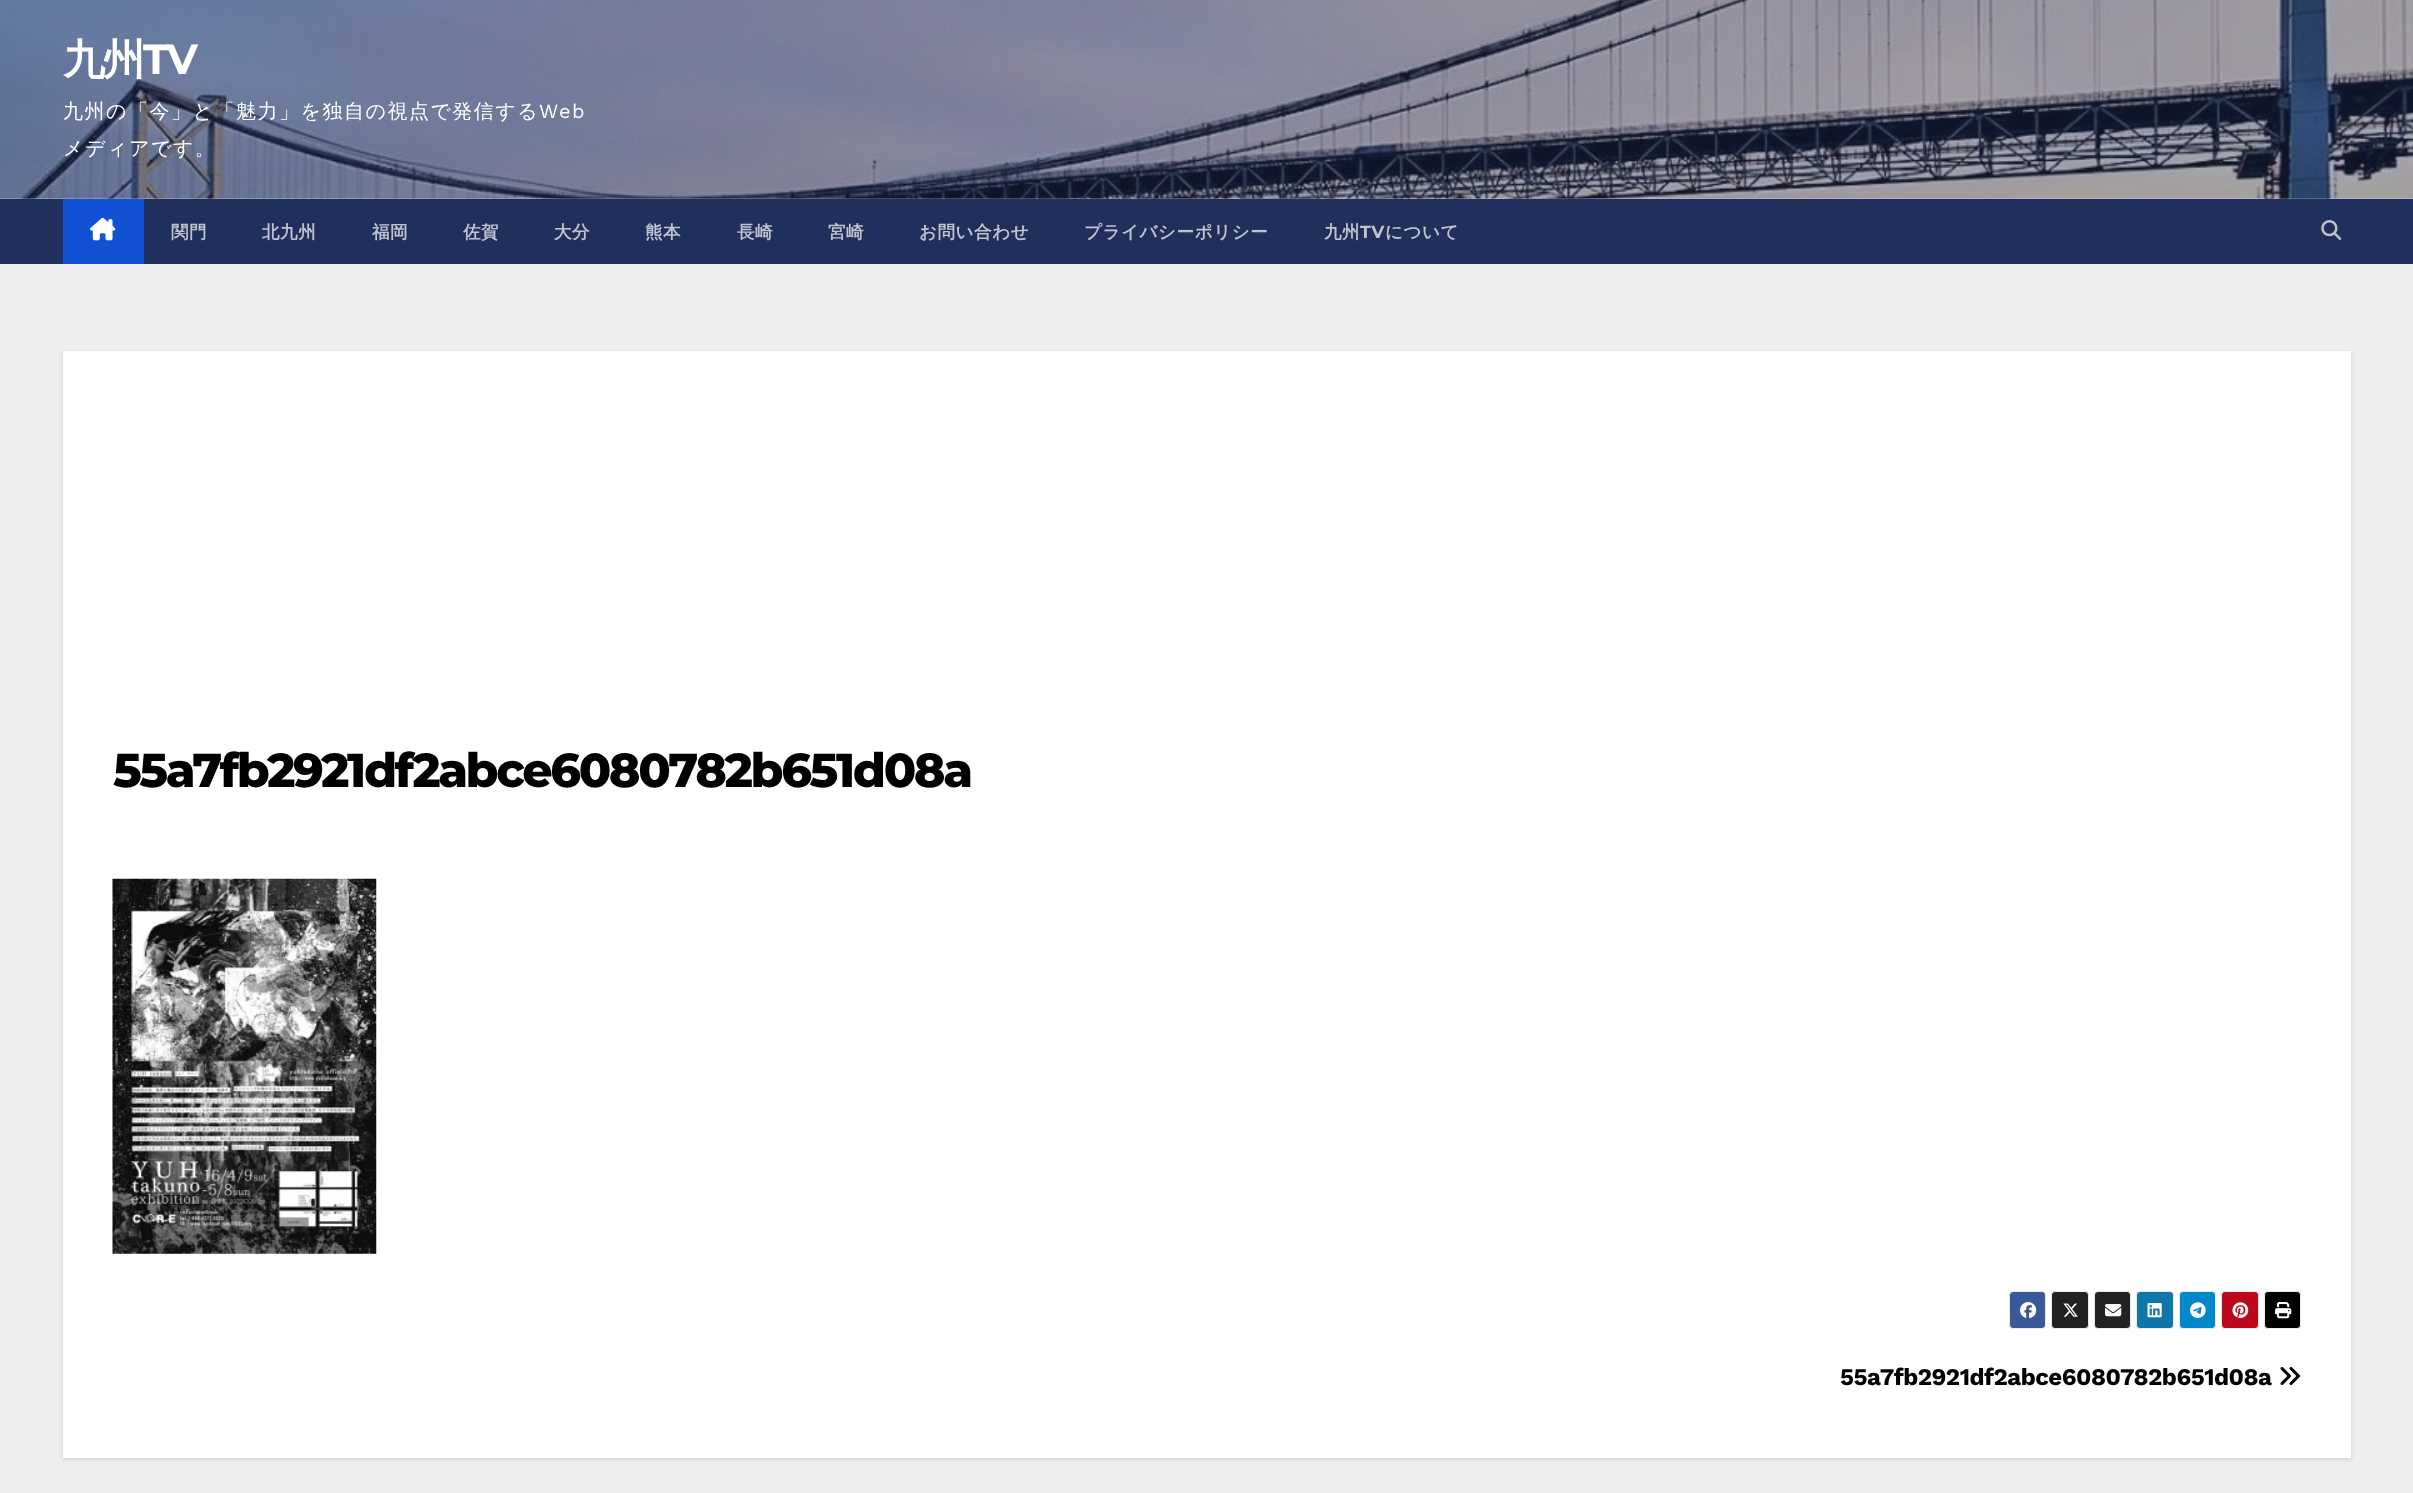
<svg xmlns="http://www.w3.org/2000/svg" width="2413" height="1493">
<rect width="100%" height="100%" fill="#eee"/>
<image x="0" y="0" width="2413" height="199" href="media/1.png"/>
<text x="63" y="74" style="font-family:WenQuanYi Zen Hei;font-size:42px;font-weight:bold;letter-spacing:-2px;fill:#fff">九州</text>
<text x="143" y="74" style="font-family:Montserrat;font-size:42px;font-weight:bold;letter-spacing:-2px;fill:#fff">TV</text>
<text x="63" y="118" style="font-family:WenQuanYi Zen Hei;font-size:20px;font-weight:500;letter-spacing:1.5px;fill:#fff">九州の「今」と「魅力」を独自の視点で発信する</text>
<text x="539" y="118" style="font-family:Work Sans;font-size:20px;letter-spacing:1.5px;fill:#fff">Web</text>
<text x="63" y="155" style="font-family:WenQuanYi Zen Hei;font-size:20px;font-weight:500;letter-spacing:1.5px;fill:#fff">メディアです。</text>
<rect y="199" width="2413" height="65" fill="#202f5b"/>
<rect x="63" y="199" width="81" height="65" fill="#1151d3"/>
<image x="90" y="217" width="26" height="24" href="media/2.png"/>
<text x="171" y="238" style="font-family:WenQuanYi Zen Hei;font-size:17.5px;font-weight:bold;letter-spacing:0.6px;fill:#bec3cf">関門</text>
<text x="262" y="238" style="font-family:WenQuanYi Zen Hei;font-size:17.5px;font-weight:bold;letter-spacing:0.6px;fill:#bec3cf">北九州</text>
<text x="372" y="238" style="font-family:WenQuanYi Zen Hei;font-size:17.5px;font-weight:bold;letter-spacing:0.6px;fill:#bec3cf">福岡</text>
<text x="463" y="238" style="font-family:WenQuanYi Zen Hei;font-size:17.5px;font-weight:bold;letter-spacing:0.6px;fill:#bec3cf">佐賀</text>
<text x="554" y="238" style="font-family:WenQuanYi Zen Hei;font-size:17.5px;font-weight:bold;letter-spacing:0.6px;fill:#bec3cf">大分</text>
<text x="645" y="238" style="font-family:WenQuanYi Zen Hei;font-size:17.5px;font-weight:bold;letter-spacing:0.6px;fill:#bec3cf">熊本</text>
<text x="737" y="238" style="font-family:WenQuanYi Zen Hei;font-size:17.5px;font-weight:bold;letter-spacing:0.6px;fill:#bec3cf">長崎</text>
<text x="828" y="238" style="font-family:WenQuanYi Zen Hei;font-size:17.5px;font-weight:bold;letter-spacing:0.6px;fill:#bec3cf">宮崎</text>
<text x="919" y="238" style="font-family:WenQuanYi Zen Hei;font-size:17.5px;font-weight:bold;letter-spacing:0.6px;fill:#bec3cf">お問い合わせ</text>
<text x="1084" y="238" style="font-family:WenQuanYi Zen Hei;font-size:17.5px;font-weight:bold;letter-spacing:0.6px;fill:#bec3cf">プライバシーポリシー</text>
<text x="1324" y="238" style="font-family:WenQuanYi Zen Hei;font-size:17.5px;font-weight:bold;letter-spacing:0.6px;fill:#bec3cf">九州</text>
<text x="1360" y="238" style="font-family:Montserrat;font-size:17.5px;font-weight:bold;letter-spacing:0.6px;fill:#bec3cf">TV</text>
<text x="1385" y="238" style="font-family:WenQuanYi Zen Hei;font-size:17.5px;font-weight:bold;letter-spacing:0.6px;fill:#bec3cf">について</text>
<image x="2321" y="220" width="21" height="20" href="media/3.png"/>
<rect x="63" y="353" width="2288" height="1106" fill="#00000026" filter="blur(2px)"/>
<rect x="63" y="351" width="2288" height="1107" fill="#fff"/>
<text x="113" y="787" style="font-family:Montserrat;font-size:47.5px;font-weight:800;letter-spacing:-2.4px;fill:#000">55a7fb2921df2abce6080782b651d08a</text>
<image x="112" y="878" width="265" height="376" href="media/4.png"/>
<rect x="2009.5" y="1291.5" width="36" height="37" rx="3.5" fill="#3b5998" stroke="#ebebeb"/>
<image x="2020" y="1302" width="17" height="17" href="media/5.png"/>
<rect x="2051.5" y="1291.5" width="37" height="37" rx="3.5" fill="#222" stroke="#ebebeb"/>
<image x="2063" y="1303" width="15" height="14" href="media/6.png"/>
<rect x="2094.5" y="1291.5" width="36" height="37" rx="3.5" fill="#222" stroke="#ebebeb"/>
<image x="2105" y="1304" width="17" height="13" href="media/7.png"/>
<rect x="2136.5" y="1291.5" width="37" height="37" rx="3.5" fill="#0e76a8" stroke="#ebebeb"/>
<image x="2147" y="1303" width="15" height="15" href="media/8.png"/>
<rect x="2179.5" y="1291.5" width="36" height="37" rx="3.5" fill="#08c" stroke="#ebebeb"/>
<image x="2190" y="1302" width="16" height="16" href="media/9.png"/>
<rect x="2221.5" y="1291.5" width="37" height="37" rx="3.5" fill="#bd081c" stroke="#ebebeb"/>
<image x="2232" y="1302" width="17" height="16" href="media/10.png"/>
<rect x="2264.5" y="1291.5" width="36" height="37" rx="3.5" fill="#000" stroke="#ebebeb"/>
<image x="2275" y="1302" width="17" height="17" href="media/11.png"/>
<text x="1840" y="1385" style="font-family:Work Sans;font-size:24px;font-weight:bold;letter-spacing:-0.5px;fill:#000">55a7fb2921df2abce6080782b651d08a</text>
<image x="2280" y="1367" width="20" height="18" href="media/12.png"/>
</svg>
